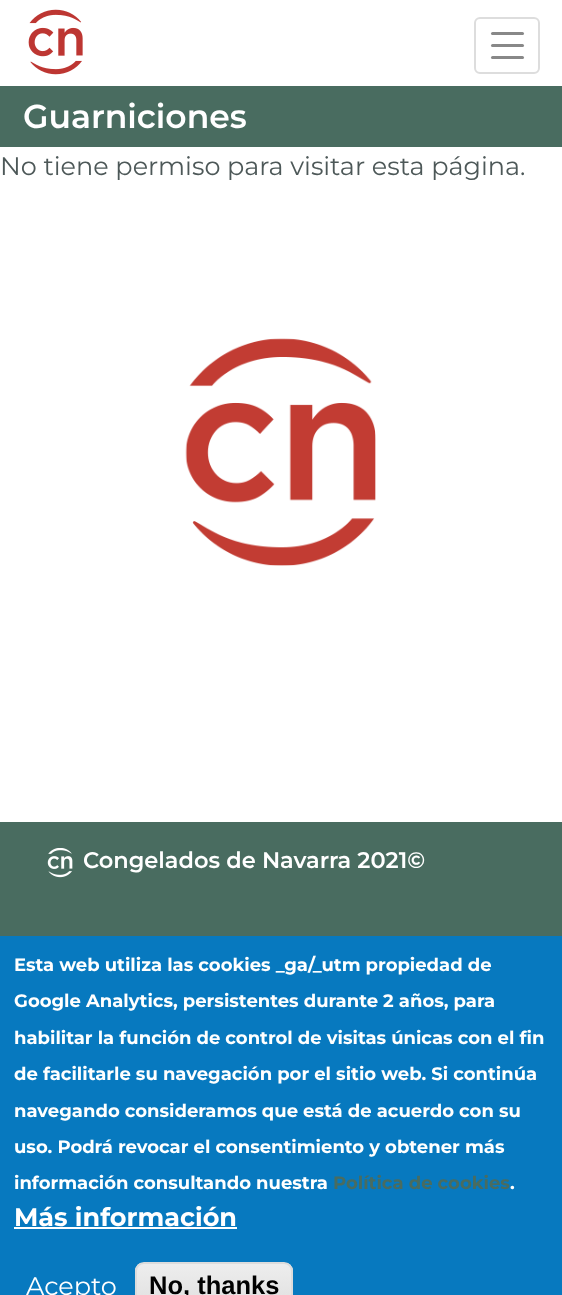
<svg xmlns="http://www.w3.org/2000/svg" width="562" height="1295">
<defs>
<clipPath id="clip1"><rect x="135" y="1262" width="158" height="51" rx="9"/></clipPath>
<linearGradient id="g1" gradientUnits="userSpaceOnUse" x1="214" y1="1263" x2="214" y2="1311"><stop offset="0.05" stop-color="#ededed"/><stop offset="1" stop-color="#dfdfdf"/></linearGradient>
</defs>
<rect width="100%" height="100%" fill="#fff"/>
<image x="28" y="9" width="55" height="66" href="media/1.png"/>
<rect x="475" y="18" width="64" height="55" rx="5" fill="none" stroke="#ddd" stroke-width="2"/>
<rect x="491" y="32" width="33" height="3" rx="1.5" fill="#888"/>
<rect x="491" y="44" width="33" height="3" rx="1.5" fill="#888"/>
<rect x="491" y="56" width="33" height="3" rx="1.5" fill="#888"/>
<rect y="86" width="562" height="61" fill="#496c60"/>
<text x="23" y="128" style="font-family:Montserrat;font-size:33px;font-weight:600;fill:#fff">Guarniciones</text>
<text x="0" y="175" style="font-family:Montserrat;font-size:25.5px;fill:#4d5858">No tiene permiso para visitar esta página.</text>
<image x="185" y="338" width="191" height="228" href="media/2.png"/>
<rect y="822" width="562" height="114" fill="#496c60"/>
<image x="47" y="848" width="26" height="30" href="media/3.png"/>
<text x="83" y="868" style="font-family:Montserrat;font-size:22.5px;font-weight:600;fill:#fff">Congelados de Navarra 2021©</text>
<rect y="936" width="562" height="359" fill="#0779bf"/>
<text x="14" y="971" style="font-family:Montserrat;font-size:18px;font-weight:bold;fill:#fff">Esta web utiliza las cookies _ga/_utm propiedad de</text>
<text x="14" y="1007" style="font-family:Montserrat;font-size:18px;font-weight:bold;fill:#fff">Google Analytics, persistentes durante 2 años, para</text>
<text x="14" y="1044" style="font-family:Montserrat;font-size:18px;font-weight:bold;fill:#fff">habilitar la función de control de visitas únicas con el fin</text>
<text x="14" y="1080" style="font-family:Montserrat;font-size:18px;font-weight:bold;fill:#fff">de facilitarle su navegación por el sitio web. Si continúa</text>
<text x="14" y="1117" style="font-family:Montserrat;font-size:18px;font-weight:bold;fill:#fff">navegando consideramos que está de acuerdo con su</text>
<text x="14" y="1153" style="font-family:Montserrat;font-size:18px;font-weight:bold;fill:#fff">uso. Podrá revocar el consentimiento y obtener más</text>
<text x="14" y="1189" style="font-family:Montserrat;font-size:18px;font-weight:bold;fill:#fff">información consultando nuestra</text>
<text x="333" y="1189" style="font-family:Montserrat;font-size:18px;font-weight:bold;fill:#496c60">Política de cookies</text>
<text x="510" y="1189" style="font-family:Montserrat;font-size:18px;font-weight:bold;fill:#fff">.</text>
<text x="14" y="1226" style="font-family:Montserrat;font-size:25.5px;font-weight:bold;fill:#fff">Más información</text>
<rect x="14" y="1227" width="223" height="2" fill="#fff"/>
<text x="26" y="1295" style="font-family:Montserrat;font-size:25.5px;fill:#fff">Acepto</text>
<g clip-path="url(#clip1)">
<rect x="135" y="1263" width="158" height="32" fill="url(#g1)"/>
</g>
<rect x="136" y="1263" width="156" height="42" rx="8" fill="none" stroke="#dcdcdc" stroke-width="2"/>
<text x="149" y="1294" style="font-family:Liberation Sans;font-size:25.5px;font-weight:bold;fill:#000">No, thanks</text>
</svg>
